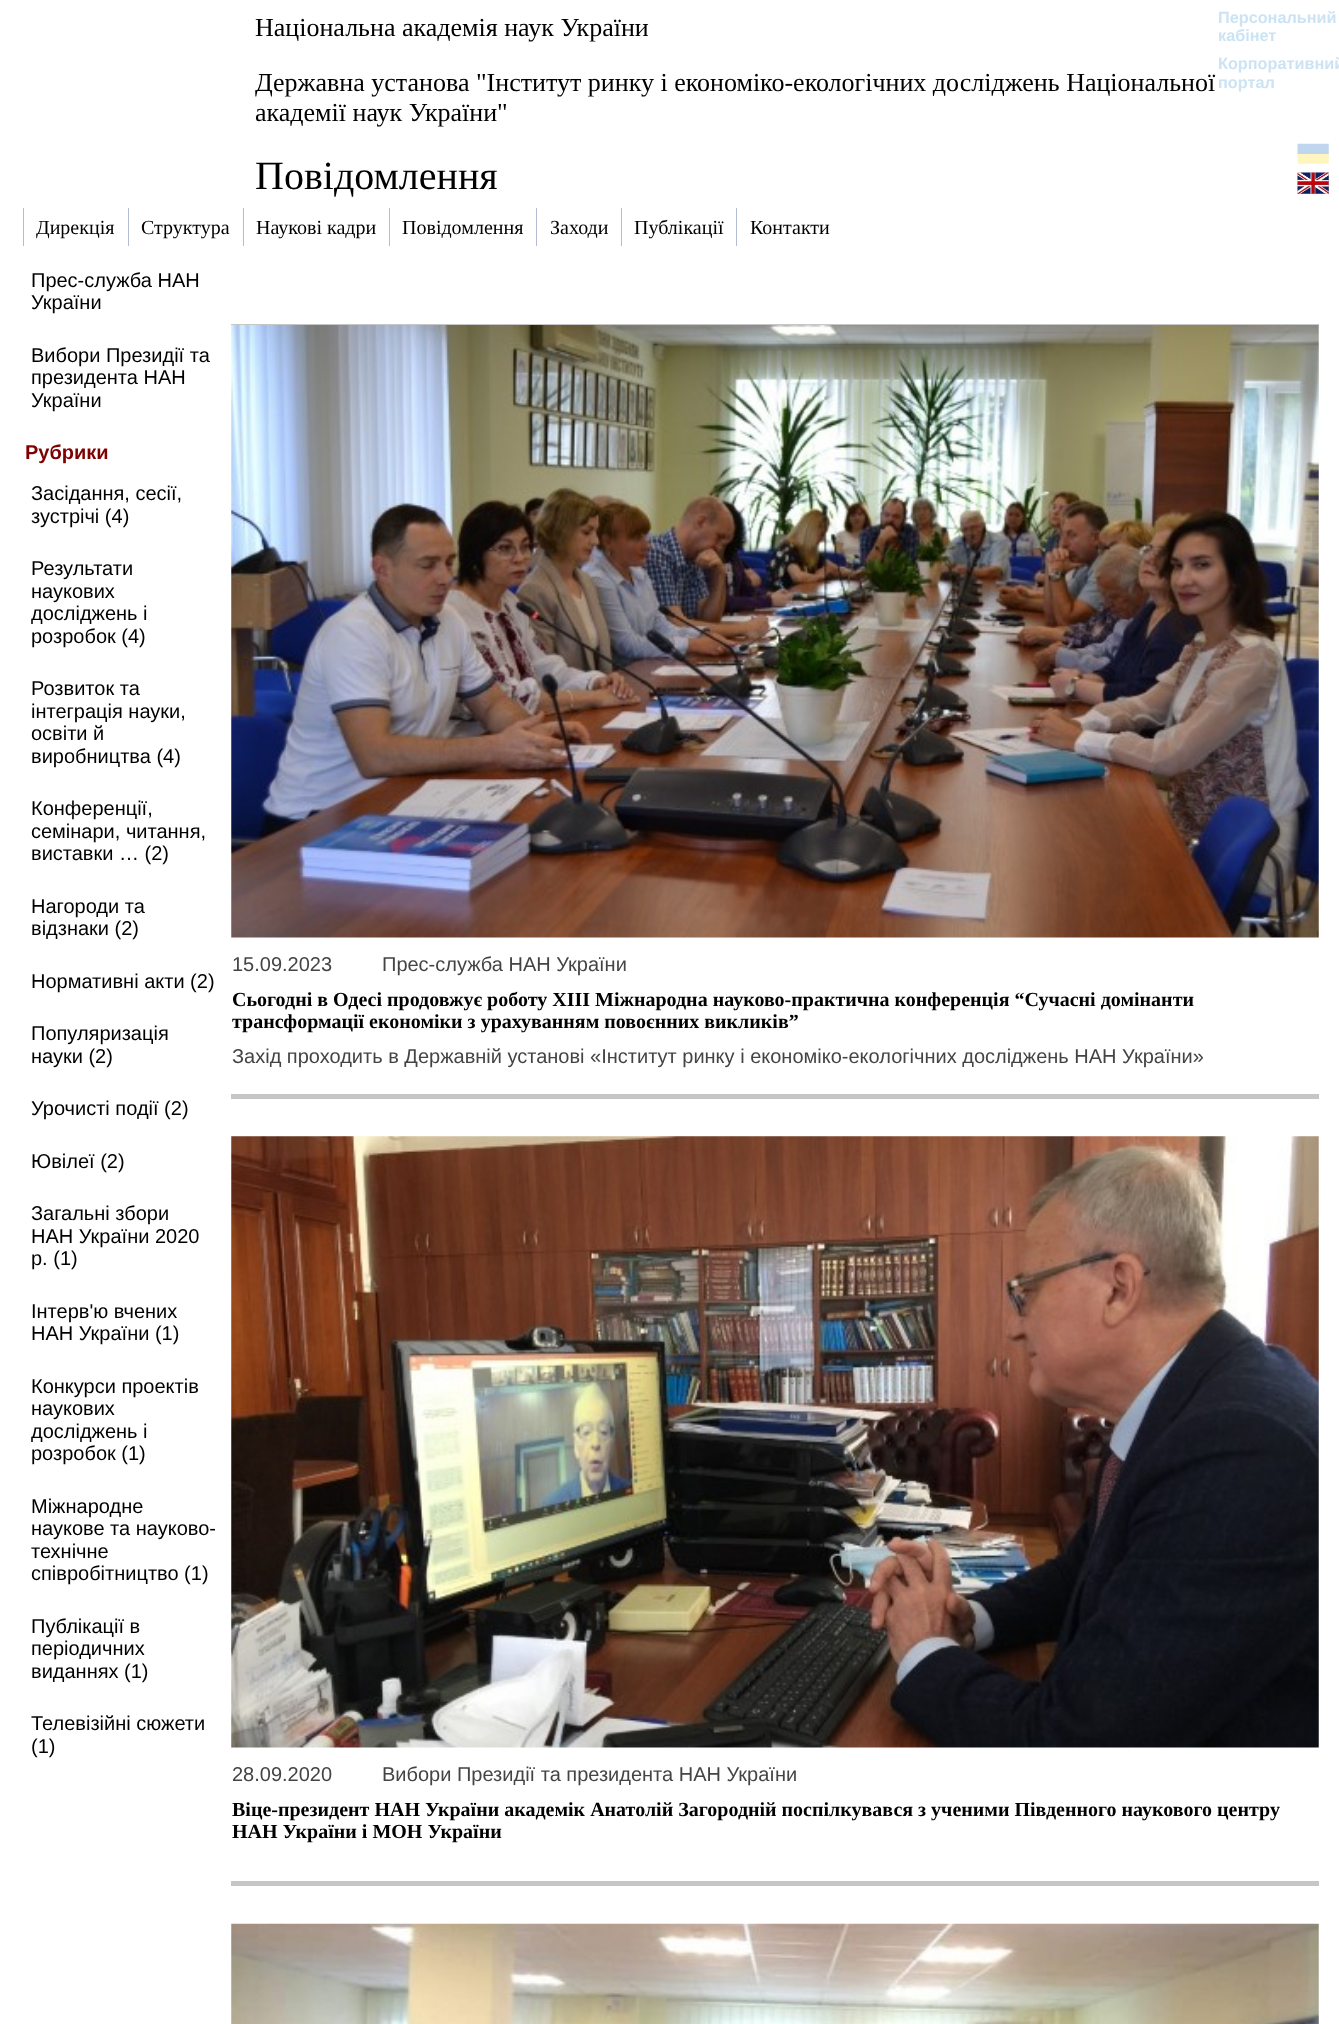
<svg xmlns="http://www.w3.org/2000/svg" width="1339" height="2024">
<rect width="100%" height="100%" fill="#fff"/>
<text x="255" y="36" style="font-family:Liberation Serif;font-size:26px;fill:#000">Національна академія наук України</text>
<text x="1218" y="23" style="font-family:Liberation Sans;font-size:16.25px;font-weight:bold;fill:#cce3f4">Персональний</text>
<text x="1218" y="41" style="font-family:Liberation Sans;font-size:16.25px;font-weight:bold;fill:#cce3f4">кабінет</text>
<text x="1218" y="69" style="font-family:Liberation Sans;font-size:16.25px;font-weight:bold;fill:#cce3f4">Корпоративний</text>
<text x="1218" y="88" style="font-family:Liberation Sans;font-size:16.25px;font-weight:bold;fill:#cce3f4">портал</text>
<text x="255" y="91" style="font-family:Liberation Serif;font-size:26px;fill:#000">Державна установа "Інститут ринку і економіко-екологічних досліджень Національної</text>
<text x="255" y="121" style="font-family:Liberation Serif;font-size:26px;fill:#000">академії наук України"</text>
<image x="1297" y="143" width="32" height="21" href="media/1.png"/>
<image x="1297" y="172" width="32" height="22" href="media/2.png"/>
<text x="255" y="189" style="font-family:Liberation Serif;font-size:40px;fill:#000">Повідомлення</text>
<rect x="23" y="208" width="1" height="38" fill="#b2bdd3"/>
<text x="36" y="234" style="font-family:Liberation Serif;font-size:20px;fill:#000">Дирекція</text>
<rect x="128" y="208" width="1" height="38" fill="#b2bdd3"/>
<text x="141" y="234" style="font-family:Liberation Serif;font-size:20px;fill:#000">Структура</text>
<rect x="243" y="208" width="1" height="38" fill="#b2bdd3"/>
<text x="256" y="234" style="font-family:Liberation Serif;font-size:20px;fill:#000">Наукові кадри</text>
<rect x="389" y="208" width="1" height="38" fill="#b2bdd3"/>
<text x="402" y="234" style="font-family:Liberation Serif;font-size:20px;fill:#000">Повідомлення</text>
<rect x="536" y="208" width="1" height="38" fill="#b2bdd3"/>
<text x="550" y="234" style="font-family:Liberation Serif;font-size:20px;fill:#000">Заходи</text>
<rect x="621" y="208" width="1" height="38" fill="#b2bdd3"/>
<text x="634" y="234" style="font-family:Liberation Serif;font-size:20px;fill:#000">Публікації</text>
<rect x="736" y="208" width="1" height="38" fill="#b2bdd3"/>
<text x="750" y="234" style="font-family:Liberation Serif;font-size:20px;fill:#000">Контакти</text>
<text x="31" y="287" style="font-family:Liberation Sans;font-size:20px;fill:#000">Прес-служба НАН</text>
<text x="31" y="309" style="font-family:Liberation Sans;font-size:20px;fill:#000">України</text>
<text x="31" y="362" style="font-family:Liberation Sans;font-size:20px;fill:#000">Вибори Президії та</text>
<text x="31" y="384" style="font-family:Liberation Sans;font-size:20px;fill:#000">президента НАН</text>
<text x="31" y="407" style="font-family:Liberation Sans;font-size:20px;fill:#000">України</text>
<text x="25" y="459" style="font-family:Liberation Sans;font-size:20px;font-weight:bold;fill:#800000">Рубрики</text>
<text x="31" y="500" style="font-family:Liberation Sans;font-size:20px;fill:#000">Засідання, сесії,</text>
<text x="31" y="523" style="font-family:Liberation Sans;font-size:20px;fill:#000">зустрічі (4)</text>
<text x="31" y="575" style="font-family:Liberation Sans;font-size:20px;fill:#000">Результати</text>
<text x="31" y="598" style="font-family:Liberation Sans;font-size:20px;fill:#000">наукових</text>
<text x="31" y="620" style="font-family:Liberation Sans;font-size:20px;fill:#000">досліджень і</text>
<text x="31" y="643" style="font-family:Liberation Sans;font-size:20px;fill:#000">розробок (4)</text>
<text x="31" y="695" style="font-family:Liberation Sans;font-size:20px;fill:#000">Розвиток та</text>
<text x="31" y="718" style="font-family:Liberation Sans;font-size:20px;fill:#000">інтеграція науки,</text>
<text x="31" y="740" style="font-family:Liberation Sans;font-size:20px;fill:#000">освіти й</text>
<text x="31" y="763" style="font-family:Liberation Sans;font-size:20px;fill:#000">виробництва (4)</text>
<text x="31" y="815" style="font-family:Liberation Sans;font-size:20px;fill:#000">Конференції,</text>
<text x="31" y="838" style="font-family:Liberation Sans;font-size:20px;fill:#000">семінари, читання,</text>
<text x="31" y="860" style="font-family:Liberation Sans;font-size:20px;fill:#000">виставки … (2)</text>
<text x="31" y="913" style="font-family:Liberation Sans;font-size:20px;fill:#000">Нагороди та</text>
<text x="31" y="935" style="font-family:Liberation Sans;font-size:20px;fill:#000">відзнаки (2)</text>
<text x="31" y="988" style="font-family:Liberation Sans;font-size:20px;fill:#000">Нормативні акти (2)</text>
<text x="31" y="1040" style="font-family:Liberation Sans;font-size:20px;fill:#000">Популяризація</text>
<text x="31" y="1063" style="font-family:Liberation Sans;font-size:20px;fill:#000">науки (2)</text>
<text x="31" y="1115" style="font-family:Liberation Sans;font-size:20px;fill:#000">Урочисті події (2)</text>
<text x="31" y="1168" style="font-family:Liberation Sans;font-size:20px;fill:#000">Ювілеї (2)</text>
<text x="31" y="1220" style="font-family:Liberation Sans;font-size:20px;fill:#000">Загальні збори</text>
<text x="31" y="1243" style="font-family:Liberation Sans;font-size:20px;fill:#000">НАН України 2020</text>
<text x="31" y="1265" style="font-family:Liberation Sans;font-size:20px;fill:#000">р. (1)</text>
<text x="31" y="1318" style="font-family:Liberation Sans;font-size:20px;fill:#000">Інтерв'ю вчених</text>
<text x="31" y="1340" style="font-family:Liberation Sans;font-size:20px;fill:#000">НАН України (1)</text>
<text x="31" y="1393" style="font-family:Liberation Sans;font-size:20px;fill:#000">Конкурси проектів</text>
<text x="31" y="1415" style="font-family:Liberation Sans;font-size:20px;fill:#000">наукових</text>
<text x="31" y="1438" style="font-family:Liberation Sans;font-size:20px;fill:#000">досліджень і</text>
<text x="31" y="1460" style="font-family:Liberation Sans;font-size:20px;fill:#000">розробок (1)</text>
<text x="31" y="1513" style="font-family:Liberation Sans;font-size:20px;fill:#000">Міжнародне</text>
<text x="31" y="1535" style="font-family:Liberation Sans;font-size:20px;fill:#000">наукове та науково-</text>
<text x="31" y="1558" style="font-family:Liberation Sans;font-size:20px;fill:#000">технічне</text>
<text x="31" y="1580" style="font-family:Liberation Sans;font-size:20px;fill:#000">співробітництво (1)</text>
<text x="31" y="1633" style="font-family:Liberation Sans;font-size:20px;fill:#000">Публікації в</text>
<text x="31" y="1655" style="font-family:Liberation Sans;font-size:20px;fill:#000">періодичних</text>
<text x="31" y="1678" style="font-family:Liberation Sans;font-size:20px;fill:#000">виданнях (1)</text>
<text x="31" y="1730" style="font-family:Liberation Sans;font-size:20px;fill:#000">Телевізійні сюжети</text>
<text x="31" y="1753" style="font-family:Liberation Sans;font-size:20px;fill:#000">(1)</text>
<rect x="231" y="324" width="1088" height="1" fill="#c6c6c6"/>
<image x="231" y="325" width="1088" height="613" href="media/3.png"/>
<text x="232" y="971" style="font-family:Liberation Sans;font-size:20px;fill:#444">15.09.2023</text>
<text x="382" y="971" style="font-family:Liberation Sans;font-size:20px;fill:#444">Прес-служба НАН України</text>
<text x="232" y="1006" style="font-family:Liberation Serif;font-size:20px;font-weight:bold;fill:#000">Сьогодні в Одесі продовжує роботу XІІІ Міжнародна науково-практична конференція “Сучасні домінанти</text>
<text x="232" y="1028" style="font-family:Liberation Serif;font-size:20px;font-weight:bold;fill:#000">трансформації економіки з урахуванням повоєнних викликів”</text>
<text x="232" y="1063" style="font-family:Liberation Sans;font-size:20px;fill:#444">Захід проходить в Державній установі «Інститут ринку і економіко-екологічних досліджень НАН України»</text>
<rect x="231" y="1094" width="1088" height="5" fill="#c6c6c6"/>
<image x="231" y="1136" width="1088" height="612" href="media/4.png"/>
<text x="232" y="1781" style="font-family:Liberation Sans;font-size:20px;fill:#444">28.09.2020</text>
<text x="382" y="1781" style="font-family:Liberation Sans;font-size:20px;fill:#444">Вибори Президії та президента НАН України</text>
<text x="232" y="1816" style="font-family:Liberation Serif;font-size:20px;font-weight:bold;fill:#000">Віце-президент НАН України академік Анатолій Загородній поспілкувався з ученими Південного наукового центру</text>
<text x="232" y="1838" style="font-family:Liberation Serif;font-size:20px;font-weight:bold;fill:#000">НАН України і МОН України</text>
<rect x="231" y="1881" width="1088" height="5" fill="#c6c6c6"/>
<image x="231" y="1923" width="1088" height="101" href="media/5.png"/>
</svg>
